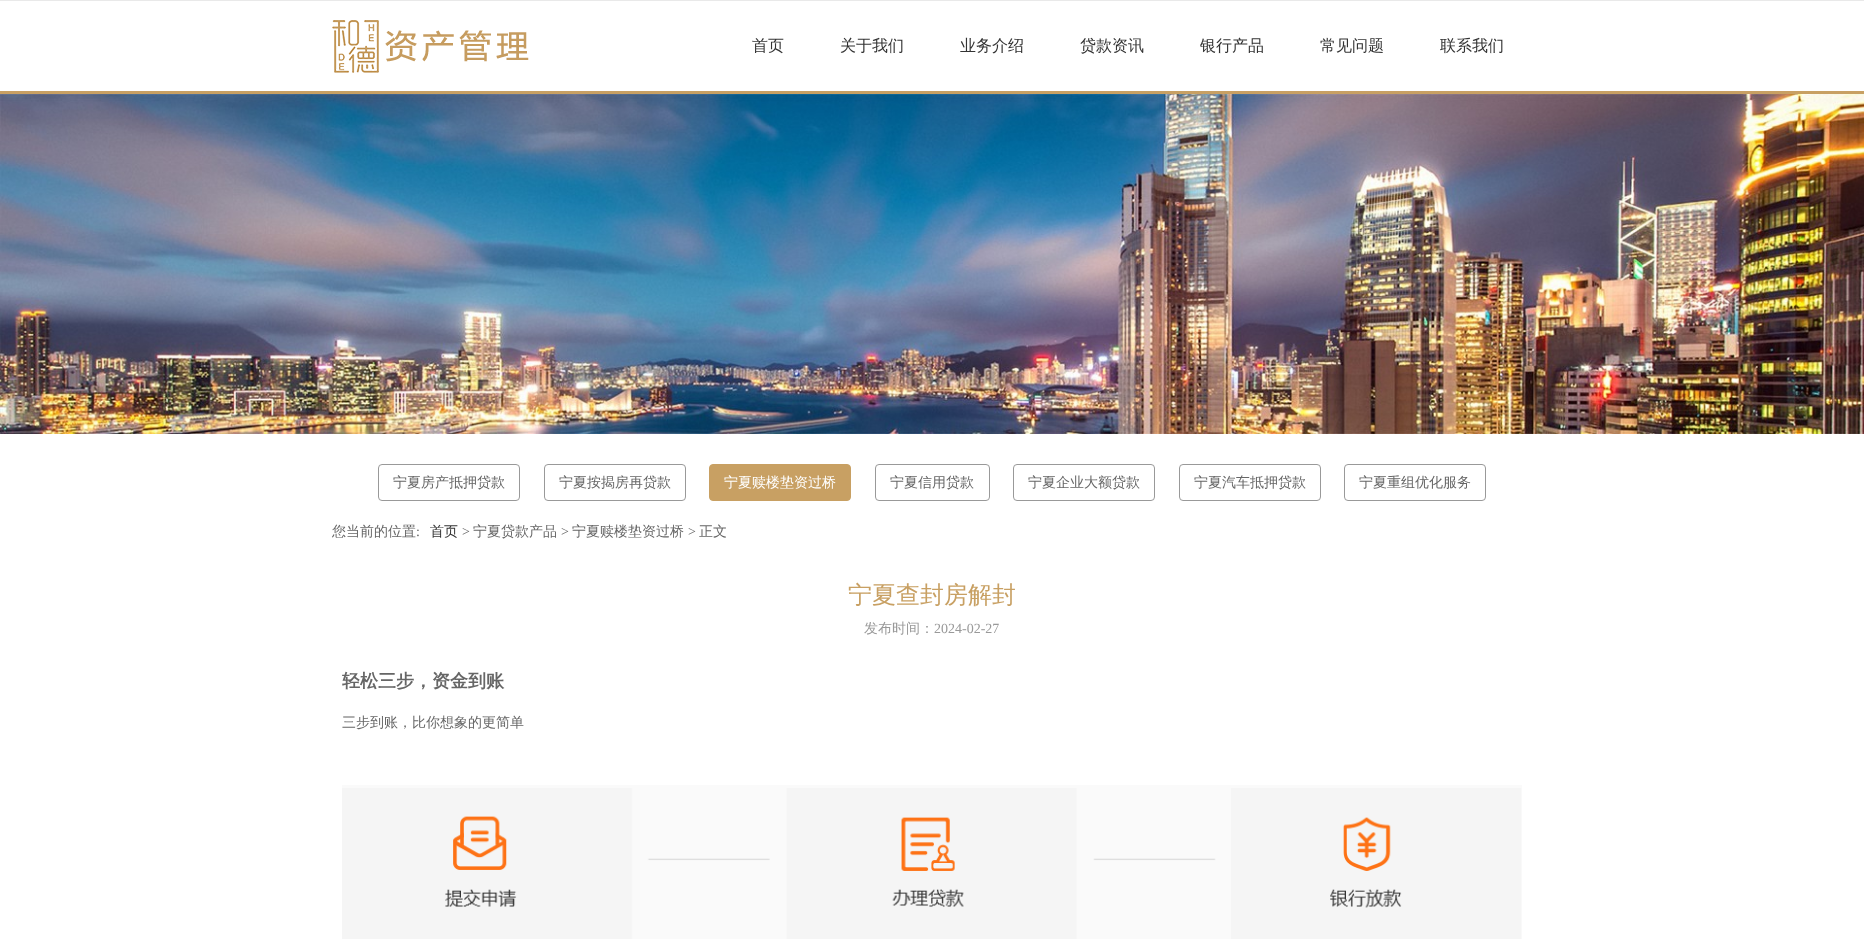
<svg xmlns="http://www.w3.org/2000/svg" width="1864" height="939">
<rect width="100%" height="100%" fill="#fff"/>
<rect y="91" width="1864" height="3" fill="#c8a063"/>
<rect width="1864" height="1" fill="#e9e9e9"/>
<image x="332" y="20" width="197" height="53" href="media/1.png"/>
<text x="752" y="51" style="font-family:WenQuanYi Zen Hei;font-size:16px;font-weight:500;fill:#333">首页</text>
<text x="840" y="51" style="font-family:WenQuanYi Zen Hei;font-size:16px;font-weight:500;fill:#333">关于我们</text>
<text x="960" y="51" style="font-family:WenQuanYi Zen Hei;font-size:16px;font-weight:500;fill:#333">业务介绍</text>
<text x="1080" y="51" style="font-family:WenQuanYi Zen Hei;font-size:16px;font-weight:500;fill:#333">贷款资讯</text>
<text x="1200" y="51" style="font-family:WenQuanYi Zen Hei;font-size:16px;font-weight:500;fill:#333">银行产品</text>
<text x="1320" y="51" style="font-family:WenQuanYi Zen Hei;font-size:16px;font-weight:500;fill:#333">常见问题</text>
<text x="1440" y="51" style="font-family:WenQuanYi Zen Hei;font-size:16px;font-weight:500;fill:#333">联系我们</text>
<image x="0" y="94" width="1864" height="340" href="media/2.png"/>
<rect x="378.5" y="464.5" width="141" height="36" rx="3.5" fill="none" stroke="#999"/>
<text x="393" y="487" style="font-family:WenQuanYi Zen Hei;font-size:14px;font-weight:500;fill:#666">宁夏房产抵押贷款</text>
<rect x="544.5" y="464.5" width="141" height="36" rx="3.5" fill="none" stroke="#999"/>
<text x="559" y="487" style="font-family:WenQuanYi Zen Hei;font-size:14px;font-weight:500;fill:#666">宁夏按揭房再贷款</text>
<rect x="709.5" y="464.5" width="141" height="36" rx="3.5" fill="#c8a063" stroke="#c8a063"/>
<text x="724" y="487" style="font-family:WenQuanYi Zen Hei;font-size:14px;font-weight:500;fill:#fff">宁夏赎楼垫资过桥</text>
<rect x="875.5" y="464.5" width="114" height="36" rx="3.5" fill="none" stroke="#999"/>
<text x="890" y="487" style="font-family:WenQuanYi Zen Hei;font-size:14px;font-weight:500;fill:#666">宁夏信用贷款</text>
<rect x="1013.5" y="464.5" width="141" height="36" rx="3.5" fill="none" stroke="#999"/>
<text x="1028" y="487" style="font-family:WenQuanYi Zen Hei;font-size:14px;font-weight:500;fill:#666">宁夏企业大额贷款</text>
<rect x="1179.5" y="464.5" width="141" height="36" rx="3.5" fill="none" stroke="#999"/>
<text x="1194" y="487" style="font-family:WenQuanYi Zen Hei;font-size:14px;font-weight:500;fill:#666">宁夏汽车抵押贷款</text>
<rect x="1344.5" y="464.5" width="141" height="36" rx="3.5" fill="none" stroke="#999"/>
<text x="1359" y="487" style="font-family:WenQuanYi Zen Hei;font-size:14px;font-weight:500;fill:#666">宁夏重组优化服务</text>
<text x="332" y="536" style="font-family:WenQuanYi Zen Hei;font-size:14px;font-weight:500;fill:#666">您当前的位置</text>
<text x="416" y="536" style="font-family:Liberation Serif;font-size:14px;fill:#666">:</text>
<text x="430" y="536" style="font-family:WenQuanYi Zen Hei;font-size:14px;font-weight:500;fill:#333">首页</text>
<text x="462" y="536" style="font-family:Liberation Serif;font-size:14px;fill:#666">&gt;</text>
<text x="473" y="536" style="font-family:WenQuanYi Zen Hei;font-size:14px;font-weight:500;fill:#666">宁夏贷款产品</text>
<text x="561" y="536" style="font-family:Liberation Serif;font-size:14px;fill:#666">&gt;</text>
<text x="572" y="536" style="font-family:WenQuanYi Zen Hei;font-size:14px;font-weight:500;fill:#666">宁夏赎楼垫资过桥</text>
<text x="688" y="536" style="font-family:Liberation Serif;font-size:14px;fill:#666">&gt;</text>
<text x="699" y="536" style="font-family:WenQuanYi Zen Hei;font-size:14px;font-weight:500;fill:#666">正文</text>
<text x="848" y="603" style="font-family:WenQuanYi Zen Hei;font-size:24px;font-weight:500;fill:#c8a063">宁夏查封房解封</text>
<text x="864" y="633" style="font-family:WenQuanYi Zen Hei;font-size:14px;font-weight:500;fill:#999">发布时间：</text>
<text x="934" y="633" style="font-family:Liberation Serif;font-size:14px;fill:#999">2024-02-27</text>
<text x="342" y="687" style="font-family:WenQuanYi Zen Hei;font-size:18px;font-weight:bold;fill:#666">轻松三步，资金到账</text>
<text x="342" y="727" style="font-family:WenQuanYi Zen Hei;font-size:14px;font-weight:500;fill:#666">三步到账，比你想象的更简单</text>
<image x="342" y="785" width="1180" height="154" href="media/3.png"/>
</svg>
